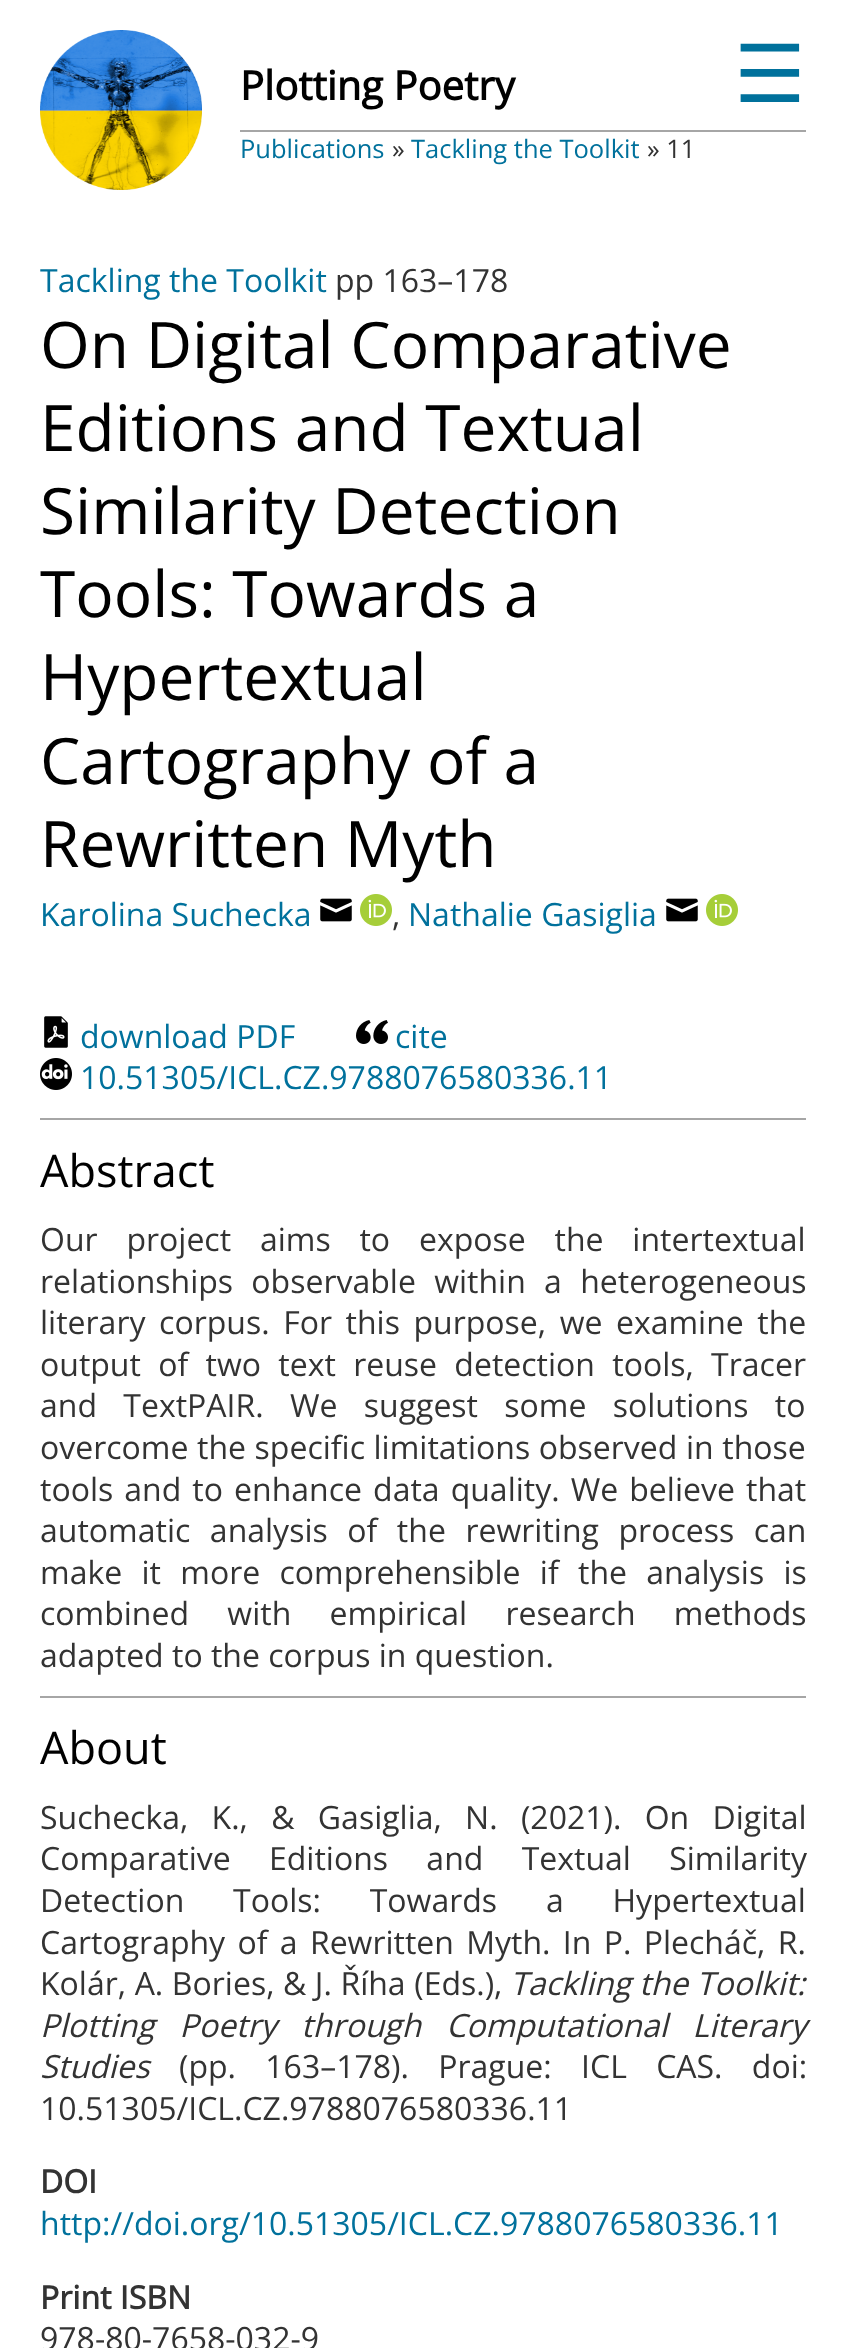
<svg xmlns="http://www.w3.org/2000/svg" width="845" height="2348">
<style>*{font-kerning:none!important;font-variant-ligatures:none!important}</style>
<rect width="100%" height="100%" fill="#fff"/>
<rect x="240" y="130" width="566" height="2" fill="#a6a6a6"/>
<image x="40" y="30" width="162" height="160" href="media/1.png"/>
<text x="240" y="100" style="font-family:Open Sans;font-size:40px;font-weight:bold;fill:#000">Plotting Poetry</text>
<text x="734" y="102" style="font-family:DejaVu Sans;font-size:80px;fill:#00719c">☰</text>
<text x="240" y="158" style="font-family:Open Sans;font-size:25.5px;fill:#00719c">Publications</text>
<text x="392" y="158" style="font-family:Open Sans;font-size:25.5px;fill:#333">»</text>
<text x="411" y="158" style="font-family:Open Sans;font-size:25.5px;fill:#00719c">Tackling the Toolkit</text>
<text x="647" y="158" style="font-family:Open Sans;font-size:25.5px;fill:#333">» 11</text>
<text x="40" y="292" style="font-family:Open Sans;font-size:32px;fill:#00719c">Tackling the Toolkit</text>
<text x="335" y="292" style="font-family:Open Sans;font-size:32px;fill:#333">pp 163–178</text>
<text x="40" y="368" style="font-family:Open Sans;font-size:64px;fill:#000">On Digital Comparative</text>
<text x="40" y="451" style="font-family:Open Sans;font-size:64px;fill:#000">Editions and Textual</text>
<text x="40" y="534" style="font-family:Open Sans;font-size:64px;fill:#000">Similarity Detection</text>
<text x="40" y="617" style="font-family:Open Sans;font-size:64px;fill:#000">Tools: Towards a</text>
<text x="40" y="700" style="font-family:Open Sans;font-size:64px;fill:#000">Hypertextual</text>
<text x="40" y="784" style="font-family:Open Sans;font-size:64px;fill:#000">Cartography of a</text>
<text x="40" y="867" style="font-family:Open Sans;font-size:64px;fill:#000">Rewritten Myth</text>
<text x="40" y="926" style="font-family:Open Sans;font-size:32px;fill:#00719c">Karolina Suchecka</text>
<image x="320" y="898" width="32" height="24" href="media/2.png"/>
<image x="360" y="894" width="32" height="32" href="media/3.png"/>
<text x="392" y="926" style="font-family:Open Sans;font-size:32px;fill:#333">,</text>
<text x="408" y="926" style="font-family:Open Sans;font-size:32px;fill:#00719c">Nathalie Gasiglia</text>
<image x="666" y="898" width="32" height="24" href="media/2.png"/>
<image x="706" y="894" width="32" height="32" href="media/3.png"/>
<image x="44" y="1016" width="24" height="32" href="media/4.png"/>
<text x="80" y="1048" style="font-family:Open Sans;font-size:32px;fill:#00719c">download PDF</text>
<image x="356" y="1020" width="32" height="24" href="media/5.png"/>
<text x="395" y="1048" style="font-family:Open Sans;font-size:32px;fill:#00719c">cite</text>
<image x="40" y="1058" width="32" height="32" href="media/6.png"/>
<text x="80" y="1089" style="font-family:Open Sans;font-size:32px;fill:#00719c">10.51305/ICL.CZ.9788076580336.11</text>
<rect x="40" y="1118" width="766" height="2" fill="#a6a6a6"/>
<text x="40" y="1187" style="font-family:Open Sans;font-size:45px;fill:#000">Abstract</text>
<text x="40" y="1251" word-spacing="20.5" style="font-family:Open Sans;font-size:32px;fill:#333">Our project aims to expose the intertextual</text>
<text x="40" y="1293" word-spacing="10" style="font-family:Open Sans;font-size:32px;fill:#333">relationships observable within a heterogeneous</text>
<text x="40" y="1334" word-spacing="5.25" style="font-family:Open Sans;font-size:32px;fill:#333">literary corpus. For this purpose, we examine the</text>
<text x="40" y="1376" word-spacing="9" style="font-family:Open Sans;font-size:32px;fill:#333">output of two text reuse detection tools, Tracer</text>
<text x="40" y="1417" word-spacing="18" style="font-family:Open Sans;font-size:32px;fill:#333">and TextPAIR. We suggest some solutions to</text>
<text x="40" y="1459" word-spacing="0.25" style="font-family:Open Sans;font-size:32px;fill:#333">overcome the specific limitations observed in those</text>
<text x="40" y="1501" word-spacing="2.75" style="font-family:Open Sans;font-size:32px;fill:#333">tools and to enhance data quality. We believe that</text>
<text x="40" y="1542" word-spacing="11.25" style="font-family:Open Sans;font-size:32px;fill:#333">automatic analysis of the rewriting process can</text>
<text x="40" y="1584" word-spacing="11" style="font-family:Open Sans;font-size:32px;fill:#333">make it more comprehensible if the analysis is</text>
<text x="40" y="1625" word-spacing="30" style="font-family:Open Sans;font-size:32px;fill:#333">combined with empirical research methods</text>
<text x="40" y="1667" style="font-family:Open Sans;font-size:32px;fill:#333">adapted to the corpus in question.</text>
<rect x="40" y="1696" width="766" height="2" fill="#a6a6a6"/>
<text x="40" y="1764" style="font-family:Open Sans;font-size:45px;fill:#000">About</text>
<text x="40" y="1829" word-spacing="15" style="font-family:Open Sans;font-size:32px;fill:#333">Suchecka, K., &amp; Gasiglia, N. (2021). On Digital</text>
<text x="40" y="1870" word-spacing="30" style="font-family:Open Sans;font-size:32px;fill:#333">Comparative Editions and Textual Similarity</text>
<text x="40" y="1912" word-spacing="40.5" style="font-family:Open Sans;font-size:32px;fill:#333">Detection Tools: Towards a Hypertextual</text>
<text x="40" y="1954" word-spacing="4" style="font-family:Open Sans;font-size:32px;fill:#333">Cartography of a Rewritten Myth. In P. Plecháč, R.</text>
<text x="40" y="1995" word-spacing="0.25" style="font-family:Open Sans;font-size:32px;fill:#333">Kolár, A. Bories, &amp; J. Říha (Eds.),</text>
<text x="510" y="1995" style="font-family:Open Sans;font-size:32px;font-style:italic;fill:#333">Tackling the Toolkit:</text>
<text x="40" y="2037" word-spacing="16.5" style="font-family:Open Sans;font-size:32px;font-style:italic;fill:#333">Plotting Poetry through Computational Literary</text>
<text x="40" y="2078" style="font-family:Open Sans;font-size:32px;font-style:italic;fill:#333">Studies</text>
<text x="179" y="2078" word-spacing="21" style="font-family:Open Sans;font-size:32px;fill:#333">(pp. 163–178). Prague: ICL CAS. doi:</text>
<text x="40" y="2120" style="font-family:Open Sans;font-size:32px;fill:#333">10.51305/ICL.CZ.9788076580336.11</text>
<text x="40" y="2193" style="font-family:Open Sans;font-size:32px;font-weight:bold;fill:#333">DOI</text>
<text x="40" y="2235" style="font-family:Open Sans;font-size:32px;fill:#00719c">http://doi.org/10.51305/ICL.CZ.9788076580336.11</text>
<text x="40" y="2309" style="font-family:Open Sans;font-size:32px;font-weight:bold;fill:#333">Print ISBN</text>
<text x="40" y="2350" style="font-family:Open Sans;font-size:32px;fill:#333">978-80-7658-032-9</text>
</svg>
